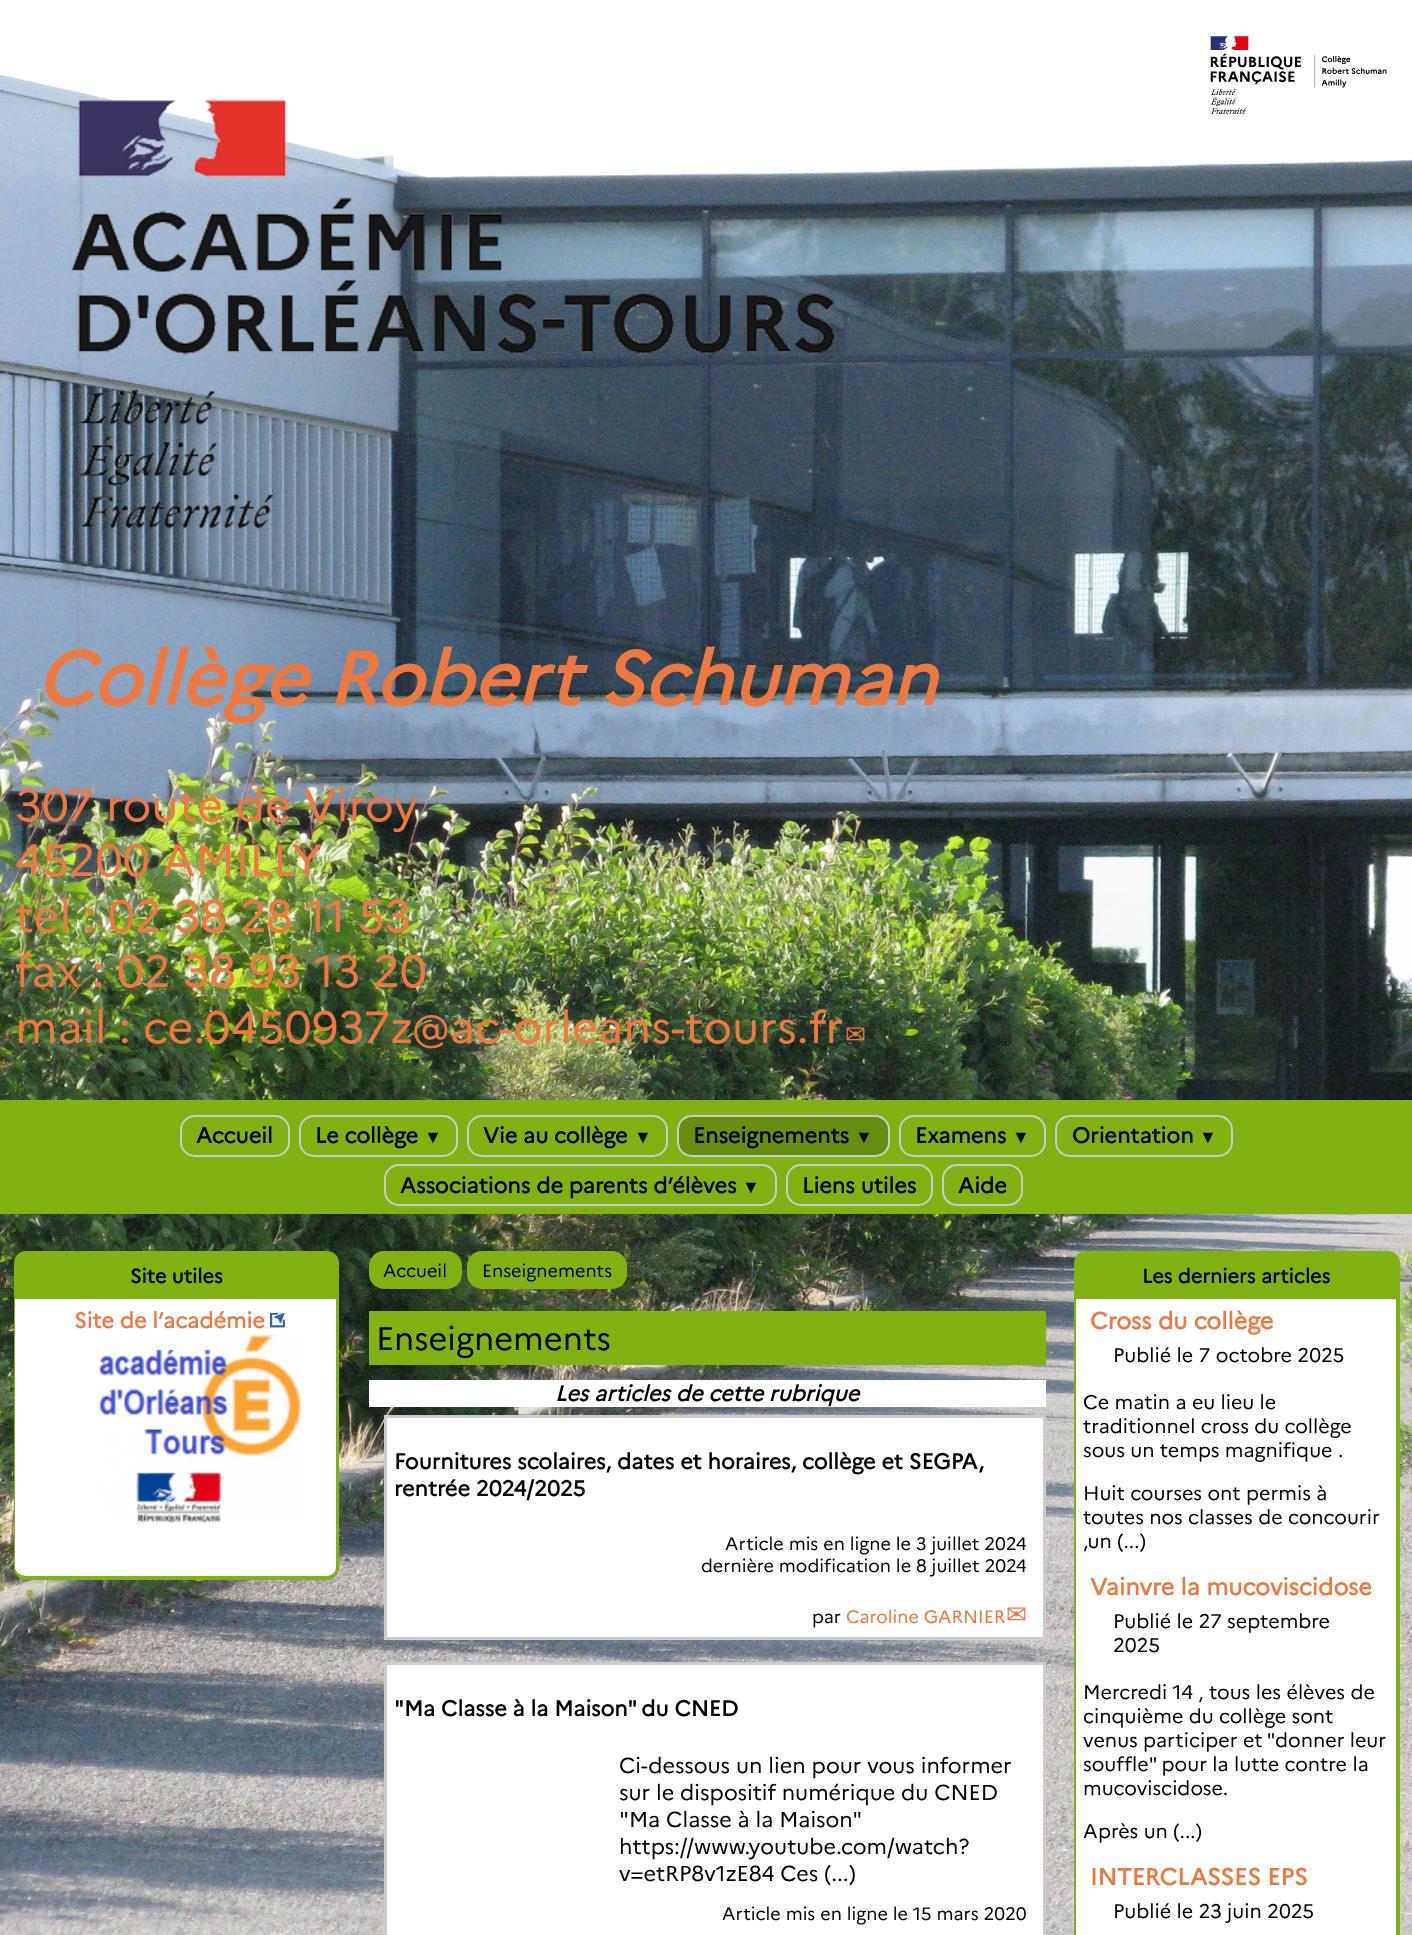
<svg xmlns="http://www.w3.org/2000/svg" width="1412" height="1935">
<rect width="100%" height="100%" fill="#fff"/>
<image x="0" y="0" width="1412" height="1935" href="media/1.png"/>
<image x="1210" y="36" width="177" height="78" href="media/2.png"/>
<image x="71" y="100" width="764" height="429" href="media/3.png"/>
<text x="36" y="705" style="font-family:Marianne;font-size:75px;font-weight:bold;font-style:italic;fill:#ec7942">Collège Robert Schuman</text>
<text x="15" y="821" style="font-family:Marianne;font-size:45px;fill:#ec7942">307 route de Viroy</text>
<text x="15" y="876" style="font-family:Marianne;font-size:45px;fill:#ec7942">45200 AMILLY</text>
<text x="15" y="932" style="font-family:Marianne;font-size:45px;fill:#ec7942">tel : 02 38 28 11 53</text>
<text x="15" y="987" style="font-family:Marianne;font-size:45px;fill:#ec7942">fax : 02 38 93 13 20</text>
<text x="15" y="1043" style="font-family:Marianne;font-size:45px;fill:#ec7942">mail : ce.0450937z</text>
<text x="412" y="1043" style="font-family:Marianne;font-size:45px;fill:#ec7942">@ac-orleans-tours.fr</text>
<text x="845" y="1043" style="font-family:DejaVu Sans;font-size:25px;fill:#ec7942">✉</text>
<rect y="1100" width="1412" height="114" fill="#81b214"/>
<rect x="181" y="1116" width="108" height="40" rx="14" fill="none" stroke="#ccc" stroke-width="2"/>
<text x="196" y="1143" style="font-family:Marianne;font-size:21.6px;font-weight:bold;fill:#000">Accueil</text>
<rect x="300" y="1116" width="157" height="40" rx="14" fill="none" stroke="#ccc" stroke-width="2"/>
<text x="315" y="1143" style="font-family:Marianne;font-size:21.6px;font-weight:bold;fill:#000">Le collège</text>
<text x="424" y="1143" style="font-family:Liberation Serif;font-size:18px;font-weight:bold;fill:#000">▼</text>
<rect x="468" y="1116" width="199" height="40" rx="14" fill="none" stroke="#ccc" stroke-width="2"/>
<text x="483" y="1143" style="font-family:Marianne;font-size:21.6px;font-weight:bold;fill:#000">Vie au collège</text>
<text x="634" y="1143" style="font-family:Liberation Serif;font-size:18px;font-weight:bold;fill:#000">▼</text>
<rect x="678" y="1116" width="211" height="40" rx="14" fill="#678e10" stroke="#ccc" stroke-width="2"/>
<text x="693" y="1143" style="font-family:Marianne;font-size:21.6px;font-weight:bold;fill:#000">Enseignements</text>
<text x="855" y="1143" style="font-family:Liberation Serif;font-size:18px;font-weight:bold;fill:#000">▼</text>
<rect x="900" y="1116" width="145" height="40" rx="14" fill="none" stroke="#ccc" stroke-width="2"/>
<text x="915" y="1143" style="font-family:Marianne;font-size:21.6px;font-weight:bold;fill:#000">Examens</text>
<text x="1012" y="1143" style="font-family:Liberation Serif;font-size:18px;font-weight:bold;fill:#000">▼</text>
<rect x="1056" y="1116" width="176" height="40" rx="14" fill="none" stroke="#ccc" stroke-width="2"/>
<text x="1072" y="1143" style="font-family:Marianne;font-size:21.6px;font-weight:bold;fill:#000">Orientation</text>
<text x="1199" y="1143" style="font-family:Liberation Serif;font-size:18px;font-weight:bold;fill:#000">▼</text>
<rect x="385" y="1165" width="391" height="40" rx="14" fill="none" stroke="#ccc" stroke-width="2"/>
<text x="400" y="1193" style="font-family:Marianne;font-size:21.6px;font-weight:bold;fill:#000">Associations de parents d’élèves</text>
<text x="742" y="1193" style="font-family:Liberation Serif;font-size:18px;font-weight:bold;fill:#000">▼</text>
<rect x="787" y="1165" width="145" height="40" rx="14" fill="none" stroke="#ccc" stroke-width="2"/>
<text x="802" y="1193" style="font-family:Marianne;font-size:21.6px;font-weight:bold;fill:#000">Liens utiles</text>
<rect x="943" y="1165" width="79" height="40" rx="14" fill="none" stroke="#ccc" stroke-width="2"/>
<text x="958" y="1193" style="font-family:Marianne;font-size:21.6px;font-weight:bold;fill:#000">Aide</text>
<path d="M26 1251h301c6.5 0 12 5.5 12 12v36h-325v-36c0-6.5 5.5-12 12-12z" fill="#81b214"/>
<text x="130" y="1283" style="font-family:Marianne;font-size:19.75px;font-weight:bold;fill:#000">Site utiles</text>
<path d="M15 1299h321v269c0 4-4 8-9 8h-301c-6 0-11-4-11-8z" fill="#fff"/>
<path d="M14 1299h325v269c0 6-5 12-12 12h-301c-7 0-12-6-12-12zm1 0h321v269c0 4-4 8-9 8h-301c-6 0-11-4-11-8z" fill="#81b214" fill-rule="evenodd"/>
<text x="74" y="1328" style="font-family:Marianne;font-size:21.6px;font-weight:bold;fill:#ec7942">Site de l’académie</text>
<image x="270" y="1313" width="15" height="15" href="media/4.png"/>
<image x="98" y="1333" width="204" height="191" href="media/5.png"/>
<rect x="369" y="1251" width="93" height="38" rx="15" fill="#81b214"/>
<text x="383" y="1277" style="font-family:Marianne;font-size:18px;fill:#000">Accueil</text>
<rect x="467" y="1251" width="160" height="38" rx="15" fill="#81b214"/>
<text x="482" y="1277" style="font-family:Marianne;font-size:18px;fill:#000">Enseignements</text>
<rect x="369" y="1311" width="677" height="54" fill="#81b214"/>
<text x="376" y="1350" style="font-family:Marianne;font-size:32.5px;fill:#000">Enseignements</text>
<rect x="369" y="1380" width="677" height="27" fill="#fff"/>
<text x="555" y="1401" style="font-family:Marianne;font-size:21.6px;font-weight:bold;font-style:italic;fill:#000">Les articles de cette rubrique</text>
<rect x="385.5" y="1416.5" width="659" height="222" fill="#fff" stroke="#ccc" stroke-width="3"/>
<text x="394" y="1469" style="font-family:Marianne;font-size:21.6px;font-weight:bold;fill:#000">Fournitures scolaires, dates et horaires, collège et SEGPA,</text>
<text x="394" y="1496" style="font-family:Marianne;font-size:21.6px;font-weight:bold;fill:#000">rentrée 2024/2025</text>
<text x="725" y="1550" style="font-family:Marianne;font-size:18px;fill:#000">Article mis en ligne le 3 juillet 2024</text>
<text x="701" y="1572" style="font-family:Marianne;font-size:18px;fill:#000">dernière modification le 8 juillet 2024</text>
<text x="812" y="1623" style="font-family:Marianne;font-size:18px;fill:#000">par</text>
<text x="846" y="1623" style="font-family:Marianne;font-size:18px;fill:#ec7942">Caroline GARNIER</text>
<text x="1006" y="1623" style="font-family:DejaVu Sans;font-size:25px;fill:#ec7942">✉</text>
<rect x="385.5" y="1663.5" width="659" height="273" fill="#fff" stroke="#ccc" stroke-width="3"/>
<text x="394" y="1716" style="font-family:Marianne;font-size:21.6px;font-weight:bold;fill:#000">"Ma Classe à la Maison" du CNED</text>
<text x="619" y="1773" style="font-family:Marianne;font-size:21.6px;fill:#000">Ci-dessous un lien pour vous informer</text>
<text x="619" y="1800" style="font-family:Marianne;font-size:21.6px;fill:#000">sur le dispositif numérique du CNED</text>
<text x="619" y="1827" style="font-family:Marianne;font-size:21.6px;fill:#000">"Ma Classe à la Maison"</text>
<text x="619" y="1854" style="font-family:Marianne;font-size:21.6px;fill:#000">https://www.youtube.com/watch?</text>
<text x="619" y="1881" style="font-family:Marianne;font-size:21.6px;fill:#000">v=etRP8v1zE84 Ces (...)</text>
<text x="722" y="1920" style="font-family:Marianne;font-size:18px;fill:#000">Article mis en ligne le 15 mars 2020</text>
<path d="M1086 1251h302c6.5 0 12 5.5 12 12v36h-326v-36c0-6.5 5.5-12 12-12z" fill="#81b214"/>
<text x="1142" y="1283" style="font-family:Marianne;font-size:19.75px;font-weight:bold;fill:#000">Les derniers articles</text>
<path d="M1076 1299h320v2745c0 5-4 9-8 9h-302c-6 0-10-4-10-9z" fill="#fff"/>
<path d="M1074 1299h326v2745c0 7-6 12-12 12h-302c-7 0-12-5-12-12zm2 0h320v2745c0 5-4 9-8 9h-302c-6 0-10-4-10-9z" fill="#81b214" fill-rule="evenodd"/>
<text x="1090" y="1329" style="font-family:Marianne;font-size:23.4px;font-weight:bold;fill:#ec7942">Cross du collège</text>
<text x="1113" y="1362" style="font-family:Marianne;font-size:19.75px;fill:#000">Publié le 7 octobre 2025</text>
<text x="1083" y="1409" style="font-family:Marianne;font-size:19.75px;fill:#000">Ce matin a eu lieu le</text>
<text x="1083" y="1433" style="font-family:Marianne;font-size:19.75px;fill:#000">traditionnel cross du collège</text>
<text x="1083" y="1457" style="font-family:Marianne;font-size:19.75px;fill:#000">sous un temps magnifique .</text>
<text x="1083" y="1500" style="font-family:Marianne;font-size:19.75px;fill:#000">Huit courses ont permis à</text>
<text x="1083" y="1524" style="font-family:Marianne;font-size:19.75px;fill:#000">toutes nos classes de concourir</text>
<text x="1083" y="1548" style="font-family:Marianne;font-size:19.75px;fill:#000">,un (...)</text>
<text x="1090" y="1595" style="font-family:Marianne;font-size:23.4px;font-weight:bold;fill:#ec7942">Vainvre la mucoviscidose</text>
<text x="1113" y="1628" style="font-family:Marianne;font-size:19.75px;fill:#000">Publié le 27 septembre</text>
<text x="1113" y="1652" style="font-family:Marianne;font-size:19.75px;fill:#000">2025</text>
<text x="1083" y="1699" style="font-family:Marianne;font-size:19.75px;fill:#000">Mercredi 14 , tous les élèves de</text>
<text x="1083" y="1723" style="font-family:Marianne;font-size:19.75px;fill:#000">cinquième du collège sont</text>
<text x="1083" y="1747" style="font-family:Marianne;font-size:19.75px;fill:#000">venus participer et "donner leur</text>
<text x="1083" y="1771" style="font-family:Marianne;font-size:19.75px;fill:#000">souffle" pour la lutte contre la</text>
<text x="1083" y="1795" style="font-family:Marianne;font-size:19.75px;fill:#000">mucoviscidose.</text>
<text x="1083" y="1838" style="font-family:Marianne;font-size:19.75px;fill:#000">Après un (...)</text>
<text x="1090" y="1885" style="font-family:Marianne;font-size:23.4px;font-weight:bold;fill:#ec7942">INTERCLASSES EPS</text>
<text x="1113" y="1918" style="font-family:Marianne;font-size:19.75px;fill:#000">Publié le 23 juin 2025</text>
</svg>
